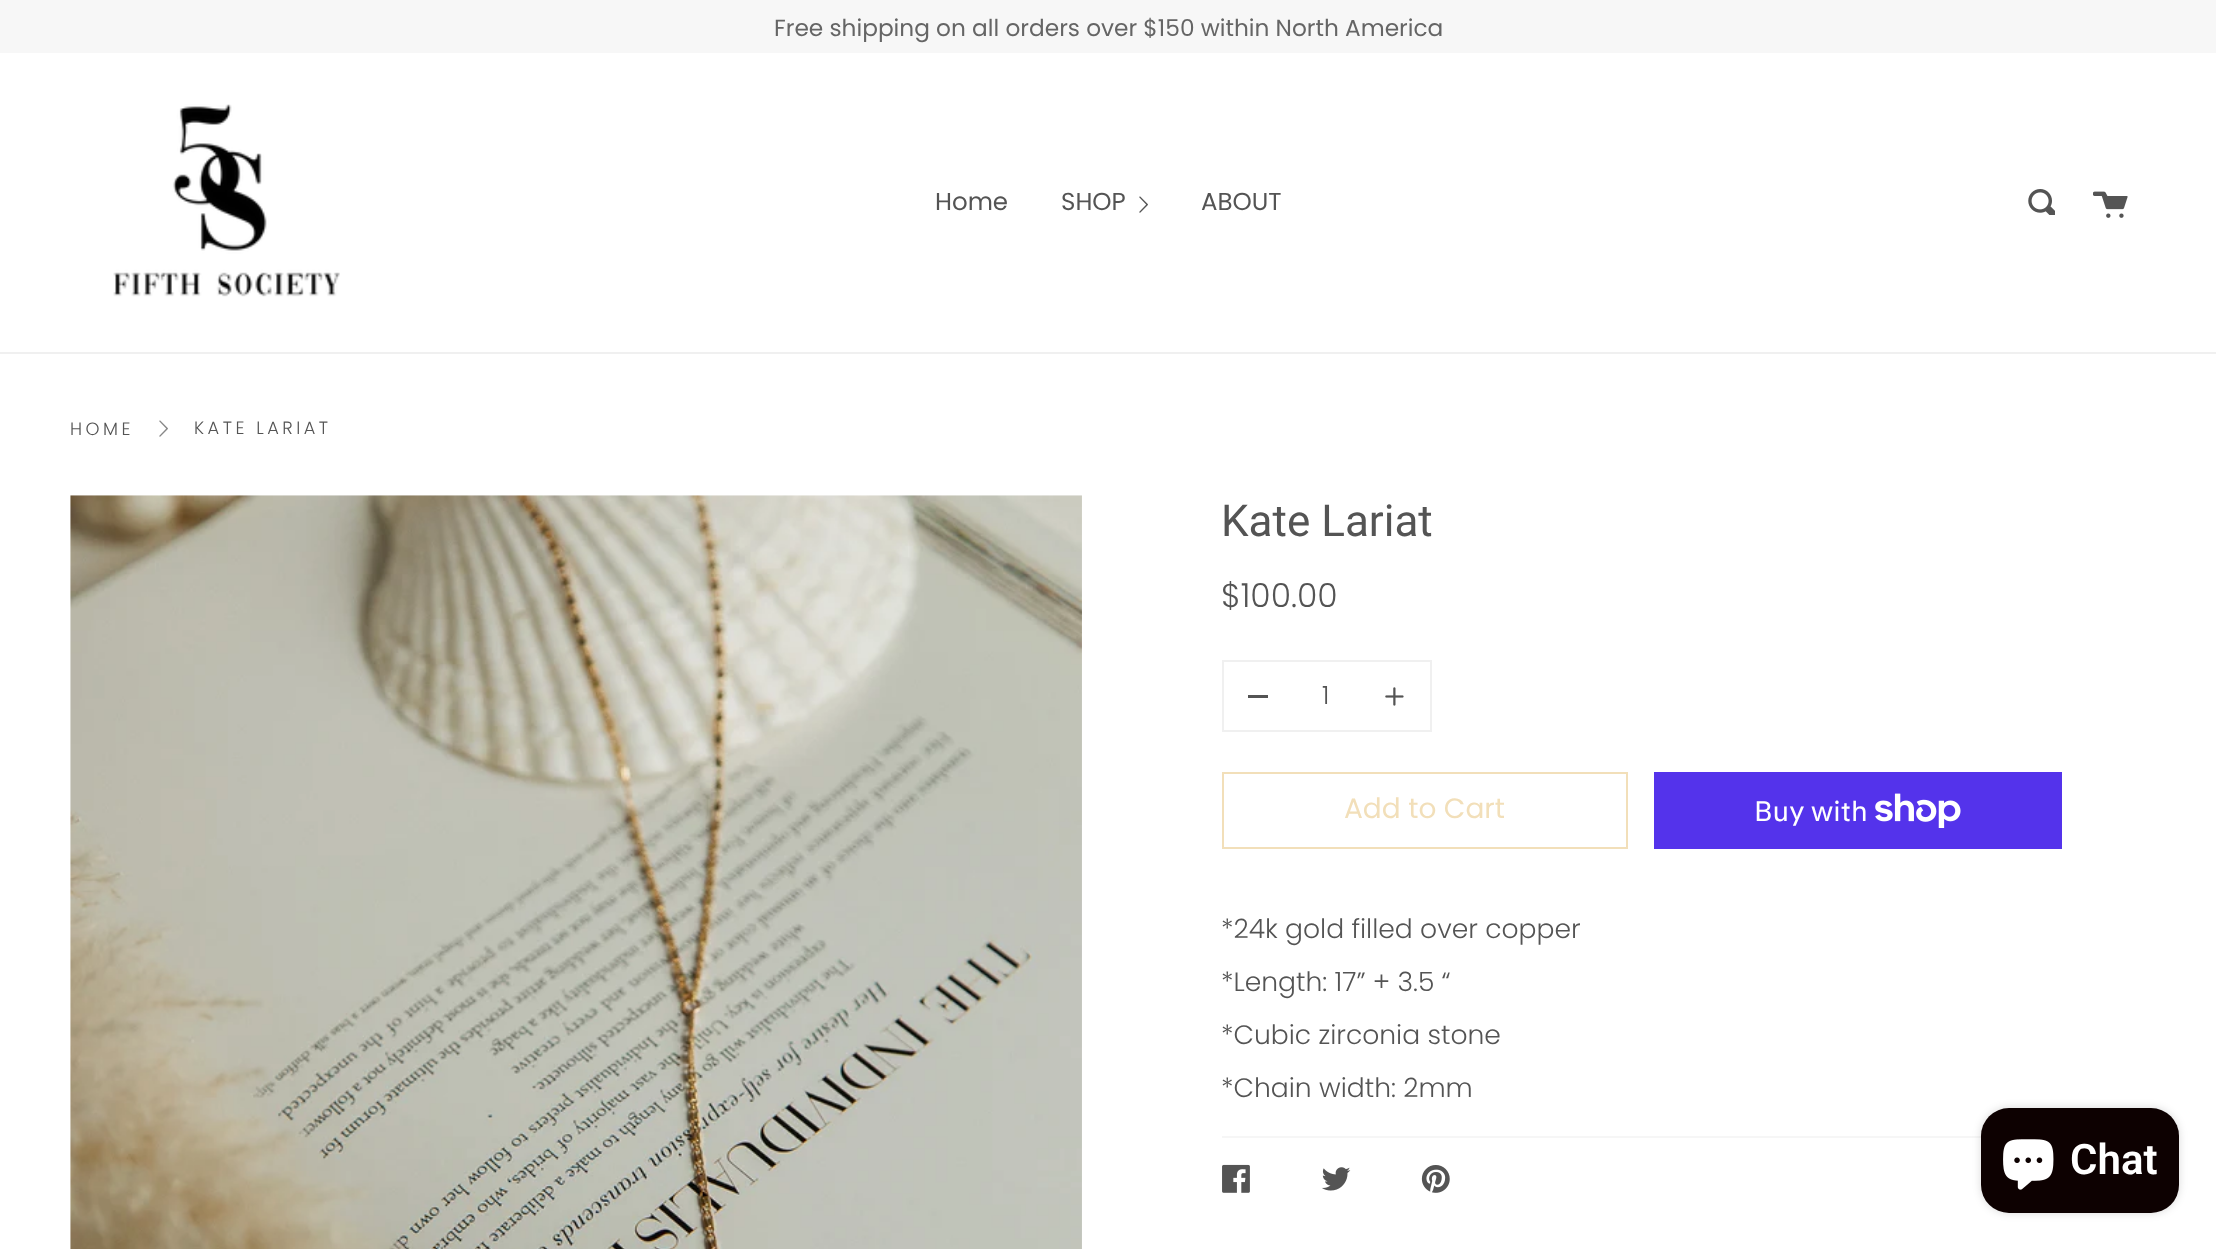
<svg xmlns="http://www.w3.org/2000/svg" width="2216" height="1249">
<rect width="100%" height="100%" fill="#fff"/>
<rect width="2216" height="53" fill="#f7f7f7"/>
<text x="774" y="36" style="font-family:Poppins;font-size:23.25px;fill:#656565">Free shipping on all orders over $150 within North America</text>
<rect y="352" width="2216" height="2" fill="#f0f0f0"/>
<image x="113" y="104" width="227" height="193" href="media/1.png"/>
<text x="935" y="210" style="font-family:Poppins;font-size:24.5px;fill:#545454">Home</text>
<text x="1061" y="210" style="font-family:Poppins;font-size:24.5px;fill:#545454">SHOP</text>
<image x="1139" y="196" width="9" height="17" href="media/2.png"/>
<text x="1201" y="210" style="font-family:Poppins;font-size:24.5px;fill:#545454">ABOUT</text>
<image x="2028" y="189" width="27" height="26" href="media/3.png"/>
<image x="2093" y="191" width="35" height="27" href="media/4.png"/>
<text x="70" y="435" style="font-family:Poppins;font-size:17.75px;font-weight:300;letter-spacing:3.5px;fill:#545454">HOME</text>
<image x="159" y="420" width="9" height="17" href="media/5.png"/>
<text x="194" y="434" style="font-family:Poppins;font-size:17.75px;font-weight:300;letter-spacing:3.5px;fill:#545454">KATE LARIAT</text>
<image x="70" y="495" width="1012" height="754" href="media/6.png"/>
<text x="1221" y="536" style="font-family:Roboto;font-size:44px;fill:#545454">Kate Lariat</text>
<text x="1221" y="607" style="font-family:Poppins;font-size:33px;font-weight:300;fill:#545454">$100.00</text>
<rect x="1223" y="661" width="208" height="70" fill="none" stroke="#f0f0f0" stroke-width="2"/>
<rect x="1248" y="695" width="20" height="3" fill="#545454"/>
<text x="1322" y="704" style="font-family:Poppins;font-size:25px;font-weight:300;fill:#545454">1</text>
<image x="1385" y="687" width="19" height="19" href="media/7.png"/>
<rect x="1223" y="773" width="404" height="75" fill="none" stroke="#f2dfb9" stroke-width="2"/>
<text x="1344" y="818" style="font-family:Poppins;font-size:28px;fill:#f2dfb9">Add to Cart</text>
<rect x="1654" y="772" width="408" height="77" fill="#5433eb"/>
<text x="1754" y="821" style="font-family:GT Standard;font-size:28px;fill:#fff">Buy with</text>
<image x="1875" y="793" width="86" height="35" href="media/8.png"/>
<text x="1221" y="938" style="font-family:Poppins;font-size:26.6px;font-weight:300;fill:#545454">*24k gold filled over copper</text>
<text x="1221" y="991" style="font-family:Poppins;font-size:26.6px;font-weight:300;fill:#545454">*Length: 17” + 3.5 “</text>
<text x="1221" y="1044" style="font-family:Poppins;font-size:26.6px;font-weight:300;fill:#545454">*Cubic zirconia stone</text>
<text x="1221" y="1097" style="font-family:Poppins;font-size:26.6px;font-weight:300;fill:#545454">*Chain width: 2mm</text>
<rect x="1222" y="1136" width="759" height="2" fill="#f6f6f6"/>
<image x="1222" y="1164" width="28" height="29" href="media/9.png"/>
<image x="1321" y="1167" width="30" height="24" href="media/10.png"/>
<image x="1421" y="1165" width="29" height="28" href="media/11.png"/>
<rect x="1981" y="1108" width="198" height="105" rx="28" fill="#00000026" filter="blur(4.5px)"/>
<rect x="1981" y="1108" width="198" height="105" rx="28" fill="#0d0101"/>
<image x="2003" y="1139" width="51" height="51" href="media/12.png"/>
<text x="2070" y="1174" style="font-family:Roboto;font-size:42px;font-weight:600;fill:#fff">Chat</text>
</svg>
